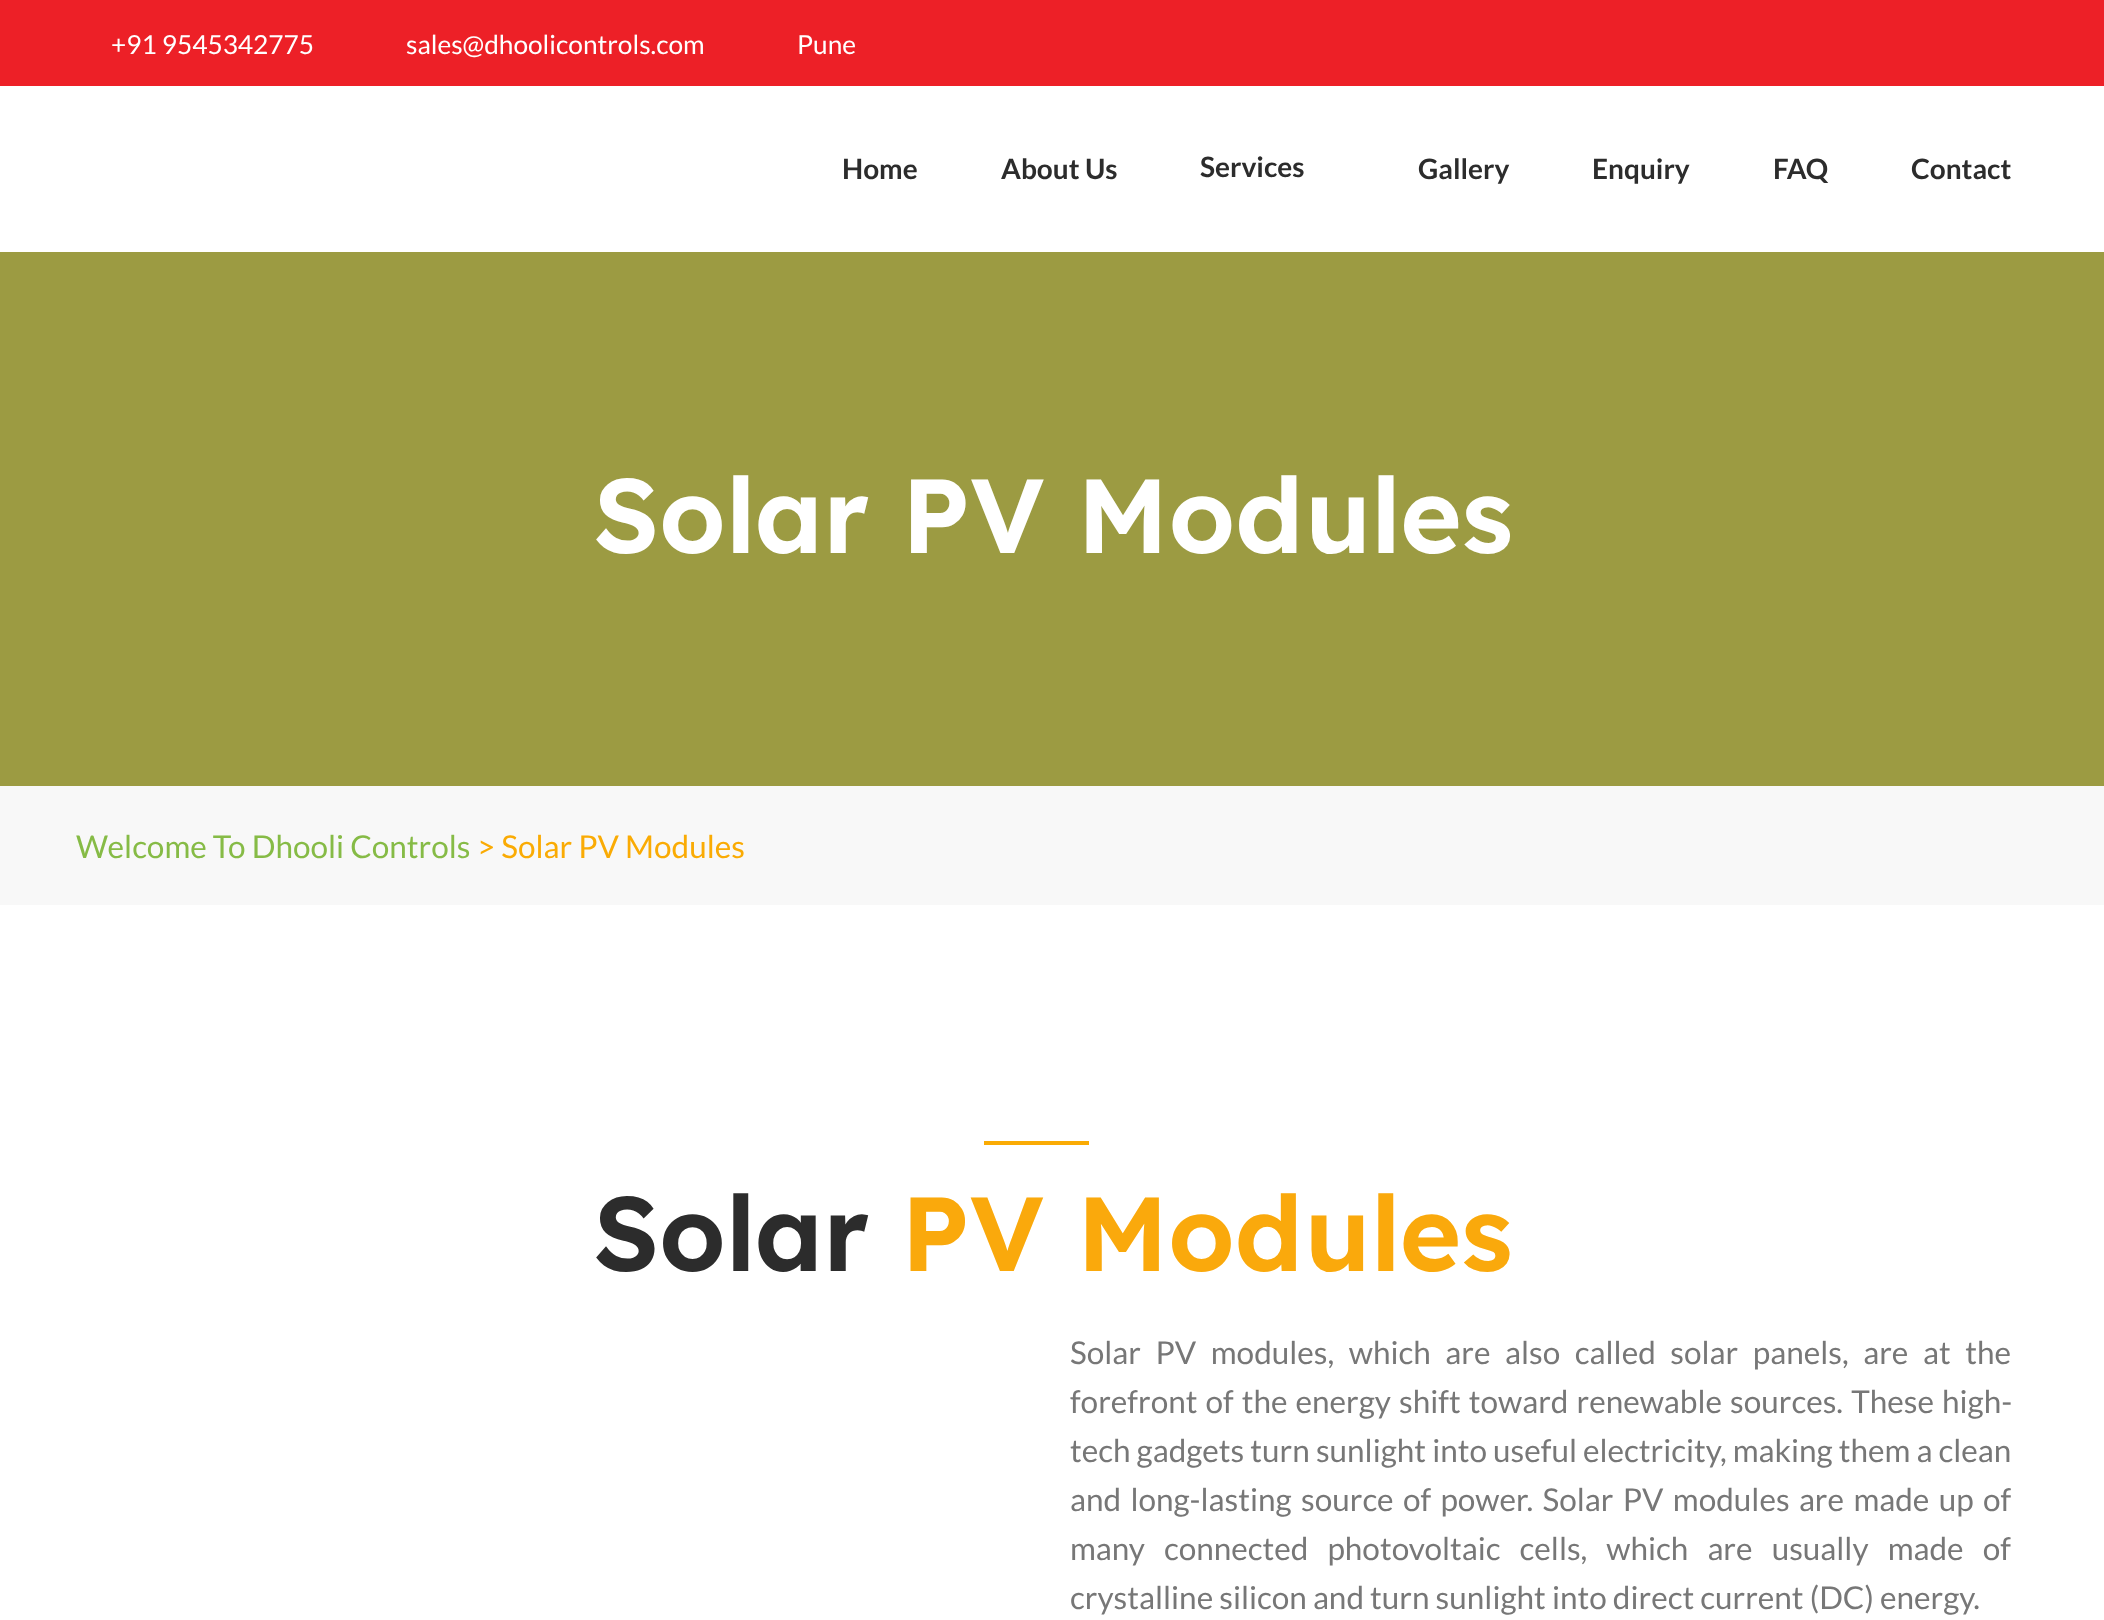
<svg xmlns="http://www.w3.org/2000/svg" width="2104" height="1620">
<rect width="100%" height="100%" fill="#fff"/>
<rect width="2104" height="86" fill="#ed2027"/>
<text x="111" y="54" style="font-family:Lato;font-size:26.25px;fill:#fff">+91 9545342775</text>
<text x="406" y="54" style="font-family:Lato;font-size:26.25px;fill:#fff">sales@dhoolicontrols.com</text>
<text x="797" y="54" style="font-family:Lato;font-size:26.25px;fill:#fff">Pune</text>
<text x="842" y="179" style="font-family:Lato;font-size:28px;font-weight:bold;fill:#2c2c2c">Home</text>
<text x="1001" y="179" style="font-family:Lato;font-size:28px;font-weight:bold;fill:#2c2c2c">About Us</text>
<text x="1200" y="177" style="font-family:Lato;font-size:28px;font-weight:bold;fill:#2c2c2c">Services</text>
<text x="1418" y="179" style="font-family:Lato;font-size:28px;font-weight:bold;fill:#2c2c2c">Gallery</text>
<text x="1592" y="179" style="font-family:Lato;font-size:28px;font-weight:bold;fill:#2c2c2c">Enquiry</text>
<text x="1773" y="179" style="font-family:Lato;font-size:28px;font-weight:bold;fill:#2c2c2c">FAQ</text>
<text x="1911" y="179" style="font-family:Lato;font-size:28px;font-weight:bold;fill:#2c2c2c">Contact</text>
<rect y="252" width="2104" height="534" fill="#9c9b42"/>
<text x="593" y="553" style="font-family:Lexend;font-size:105px;font-weight:600;fill:#fff">Solar PV Modules</text>
<rect y="786" width="2104" height="119" fill="#f8f8f8"/>
<text x="76" y="858" style="font-family:Lato;font-size:31.5px;fill:#86bb46">Welcome To Dhooli Controls</text>
<text x="477" y="858" style="font-family:Lato;font-size:31.5px;fill:#faab04">&gt; Solar PV Modules</text>
<rect x="984" y="1141" width="105" height="4" fill="#faab04"/>
<text x="593" y="1271" style="font-family:Lexend;font-size:105px;font-weight:600;fill:#2c2c2c">Solar</text>
<text x="901" y="1271" style="font-family:Lexend;font-size:105px;font-weight:600;fill:#faa90c">PV Modules</text>
<text x="1070" y="1364" word-spacing="8.5" style="font-family:Lato;font-size:31.5px;fill:#777">Solar PV modules, which are also called solar panels, are at the</text>
<text x="1070" y="1413" word-spacing="2" style="font-family:Lato;font-size:31.5px;fill:#777">forefront of the energy shift toward renewable sources. These high-</text>
<text x="1070" y="1462" style="font-family:Lato;font-size:31.5px;fill:#777">tech gadgets turn sunlight into useful electricity, making them a clean</text>
<text x="1070" y="1511" word-spacing="3.25" style="font-family:Lato;font-size:31.5px;fill:#777">and long-lasting source of power. Solar PV modules are made up of</text>
<text x="1070" y="1560" word-spacing="13" style="font-family:Lato;font-size:31.5px;fill:#777">many connected photovoltaic cells, which are usually made of</text>
<text x="1070" y="1609" style="font-family:Lato;font-size:31.5px;fill:#777">crystalline silicon and turn sunlight into direct current (DC) energy.</text>
</svg>
